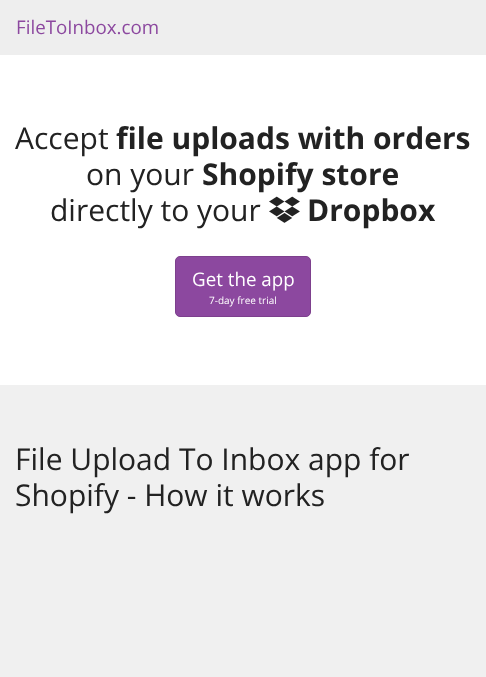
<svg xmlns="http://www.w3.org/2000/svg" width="486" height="677">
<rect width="100%" height="100%" fill="#fff"/>
<rect width="486" height="55" fill="#eee"/>
<text x="16" y="34" style="font-family:Open Sans;font-size:18.75px;fill:#8c489f">FileToInbox.com</text>
<text x="15" y="149" style="font-family:Open Sans;font-size:30px;fill:#222">Accept</text>
<text x="116" y="149" style="font-family:Open Sans;font-size:30px;font-weight:bold;fill:#222">file uploads with orders</text>
<text x="86" y="185" style="font-family:Open Sans;font-size:30px;fill:#222">on your</text>
<text x="202" y="185" style="font-family:Open Sans;font-size:30px;font-weight:bold;fill:#222">Shopify store</text>
<text x="50" y="221" style="font-family:Open Sans;font-size:30px;fill:#222">directly to your</text>
<image x="269" y="196" width="31" height="27" href="media/1.png"/>
<text x="307" y="221" style="font-family:Open Sans;font-size:30px;font-weight:bold;fill:#222">Dropbox</text>
<rect x="175.5" y="256.5" width="135" height="60" rx="4.5" fill="#8c489f" stroke="#7d408d"/>
<text x="192" y="286" style="font-family:Open Sans;font-size:18.75px;fill:#fff">Get the app</text>
<text x="209" y="304" style="font-family:Open Sans;font-size:10px;fill:#fff">7-day free trial</text>
<rect y="385" width="486" height="292" fill="#f0f0f0"/>
<text x="15" y="470" style="font-family:Open Sans;font-size:30px;fill:#222">File Upload To Inbox app for</text>
<text x="15" y="506" style="font-family:Open Sans;font-size:30px;fill:#222">Shopify - How it works</text>
</svg>
